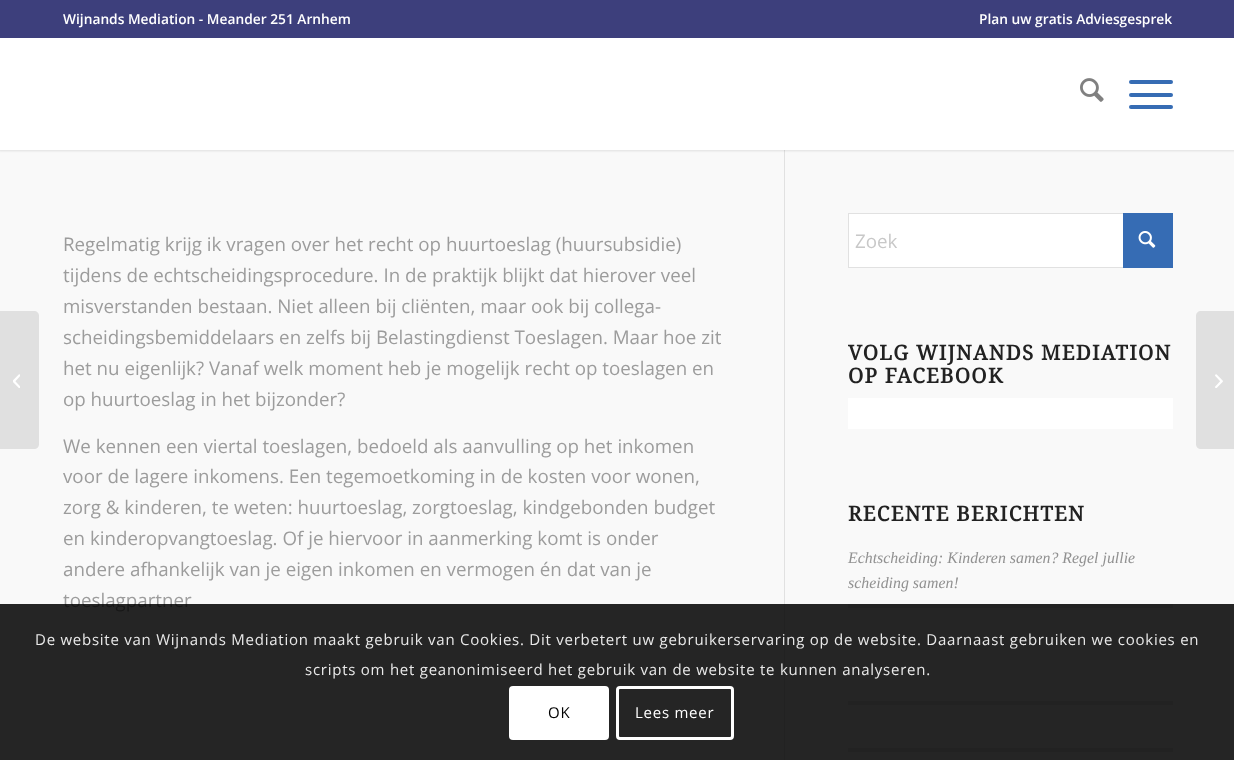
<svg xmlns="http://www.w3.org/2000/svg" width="1234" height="760">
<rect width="100%" height="100%" fill="#f9f9f9"/>
<rect x="784" y="150" width="1" height="610" fill="#e1e1e1"/>
<rect x="-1" y="-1" width="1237" height="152" fill="#0000001a" filter="blur(1px)"/>
<rect width="1234" height="38" fill="#3d3f7c"/>
<text x="63" y="24" style="font-family:Open Sans;font-size:13.75px;font-weight:600;fill:#fff">Wijnands Mediation - Meander 251 Arnhem</text>
<text x="979" y="24" style="font-family:Open Sans;font-size:13.75px;font-weight:600;fill:#fff">Plan uw gratis Adviesgesprek</text>
<rect y="38" width="1234" height="112" fill="#fff"/>
<image x="1080" y="78" width="24" height="24" href="media/1.png"/>
<rect x="1129" y="93" width="44" height="4" rx="2" fill="#366cb4"/>
<rect x="1129" y="80" width="44" height="4" rx="2" fill="#366cb4"/>
<rect x="1129" y="105" width="44" height="4" rx="2" fill="#366cb4"/>
<path d="M0 311h34c3 0 5 2 5 5v128c0 3-2 5-5 5h-34z" fill="#e0e0e0"/>
<image x="13" y="374" width="7" height="14" href="media/2.png"/>
<text x="63" y="251" style="font-family:Open Sans;font-size:18.75px;fill:#9c9c9c">Regelmatig krijg ik vragen over het recht op huurtoeslag (huursubsidie)</text>
<text x="63" y="282" style="font-family:Open Sans;font-size:18.75px;fill:#9c9c9c">tijdens de echtscheidingsprocedure. In de praktijk blijkt dat hierover veel</text>
<text x="63" y="313" style="font-family:Open Sans;font-size:18.75px;fill:#9c9c9c">misverstanden bestaan. Niet alleen bij cliënten, maar ook bij collega-</text>
<text x="63" y="344" style="font-family:Open Sans;font-size:18.75px;fill:#9c9c9c">scheidingsbemiddelaars en zelfs bij Belastingdienst Toeslagen. Maar hoe zit</text>
<text x="63" y="375" style="font-family:Open Sans;font-size:18.75px;fill:#9c9c9c">het nu eigenlijk? Vanaf welk moment heb je mogelijk recht op toeslagen en</text>
<text x="63" y="406" style="font-family:Open Sans;font-size:18.75px;fill:#9c9c9c">op huurtoeslag in het bijzonder?</text>
<text x="63" y="453" style="font-family:Open Sans;font-size:18.75px;fill:#9c9c9c">We kennen een viertal toeslagen, bedoeld als aanvulling op het inkomen</text>
<text x="63" y="483" style="font-family:Open Sans;font-size:18.75px;fill:#9c9c9c">voor de lagere inkomens. Een tegemoetkoming in de kosten voor wonen,</text>
<text x="63" y="514" style="font-family:Open Sans;font-size:18.75px;fill:#9c9c9c">zorg &amp; kinderen, te weten: huurtoeslag, zorgtoeslag, kindgebonden budget</text>
<text x="63" y="545" style="font-family:Open Sans;font-size:18.75px;fill:#9c9c9c">en kinderopvangtoeslag. Of je hiervoor in aanmerking komt is onder</text>
<text x="63" y="576" style="font-family:Open Sans;font-size:18.75px;fill:#9c9c9c">andere afhankelijk van je eigen inkomen en vermogen én dat van je</text>
<text x="63" y="607" style="font-family:Open Sans;font-size:18.75px;fill:#9c9c9c">toeslagpartner</text>
<rect x="849" y="214" width="274" height="53" fill="#fff"/>
<rect x="848.5" y="213.5" width="324" height="54" fill="none" stroke="#e1e1e1"/>
<rect x="1123" y="213" width="50" height="55" fill="#366cb4"/>
<text x="855" y="248" style="font-family:Open Sans;font-size:18.75px;fill:#c8c8c8">Zoek</text>
<image x="1138" y="231" width="18" height="17" href="media/3.png"/>
<text x="848" y="360" style="font-family:Droid Serif;font-size:20.6px;font-weight:bold;letter-spacing:1.25px;fill:#222">VOLG WIJNANDS MEDIATION</text>
<text x="848" y="383" style="font-family:Droid Serif;font-size:20.6px;font-weight:bold;letter-spacing:1.25px;fill:#222">OP FACEBOOK</text>
<rect x="848" y="398" width="325" height="31" fill="#fff"/>
<text x="848" y="521" style="font-family:Droid Serif;font-size:20.6px;font-weight:bold;letter-spacing:1.25px;fill:#222">RECENTE BERICHTEN</text>
<text x="848" y="563" style="font-family:Liberation Serif;font-size:15.9px;font-style:italic;fill:#919191">Echtscheiding: Kinderen samen? Regel jullie</text>
<text x="848" y="588" style="font-family:Liberation Serif;font-size:15.9px;font-style:italic;fill:#919191">scheiding samen!</text>
<rect x="848" y="604" width="325" height="4" fill="#e1e1e1"/>
<rect x="848" y="701" width="325" height="4" fill="#e1e1e1"/>
<rect x="848" y="748" width="325" height="4" fill="#e1e1e1"/>
<path d="M1201 311h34v138h-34c-3 0-5-2-5-5v-128c0-3 2-5 5-5z" fill="#e0e0e0"/>
<image x="1215" y="374" width="8" height="14" href="media/4.png"/>
<rect y="604" width="1234" height="156" fill="#000000d9"/>
<text x="35" y="645" style="font-family:Open Sans;font-size:15px;letter-spacing:0.75px;fill:#e9e9e9">De website van Wijnands Mediation maakt gebruik van Cookies. Dit verbetert uw gebruikerservaring op de website. Daarnaast gebruiken we cookies en</text>
<text x="305" y="675" style="font-family:Open Sans;font-size:15px;letter-spacing:0.75px;fill:#e9e9e9">scripts om het geanonimiseerd het gebruik van de website te kunnen analyseren.</text>
<rect x="509" y="686" width="100" height="54" rx="4" fill="#fff"/>
<text x="548" y="718" style="font-family:Open Sans;font-size:15px;letter-spacing:0.75px;fill:#000">OK</text>
<rect x="617.5" y="687.5" width="115" height="51" rx="2.5" fill="none" stroke="#fff" stroke-width="3"/>
<text x="635" y="718" style="font-family:Open Sans;font-size:15px;letter-spacing:0.75px;fill:#fff">Lees meer</text>
</svg>
